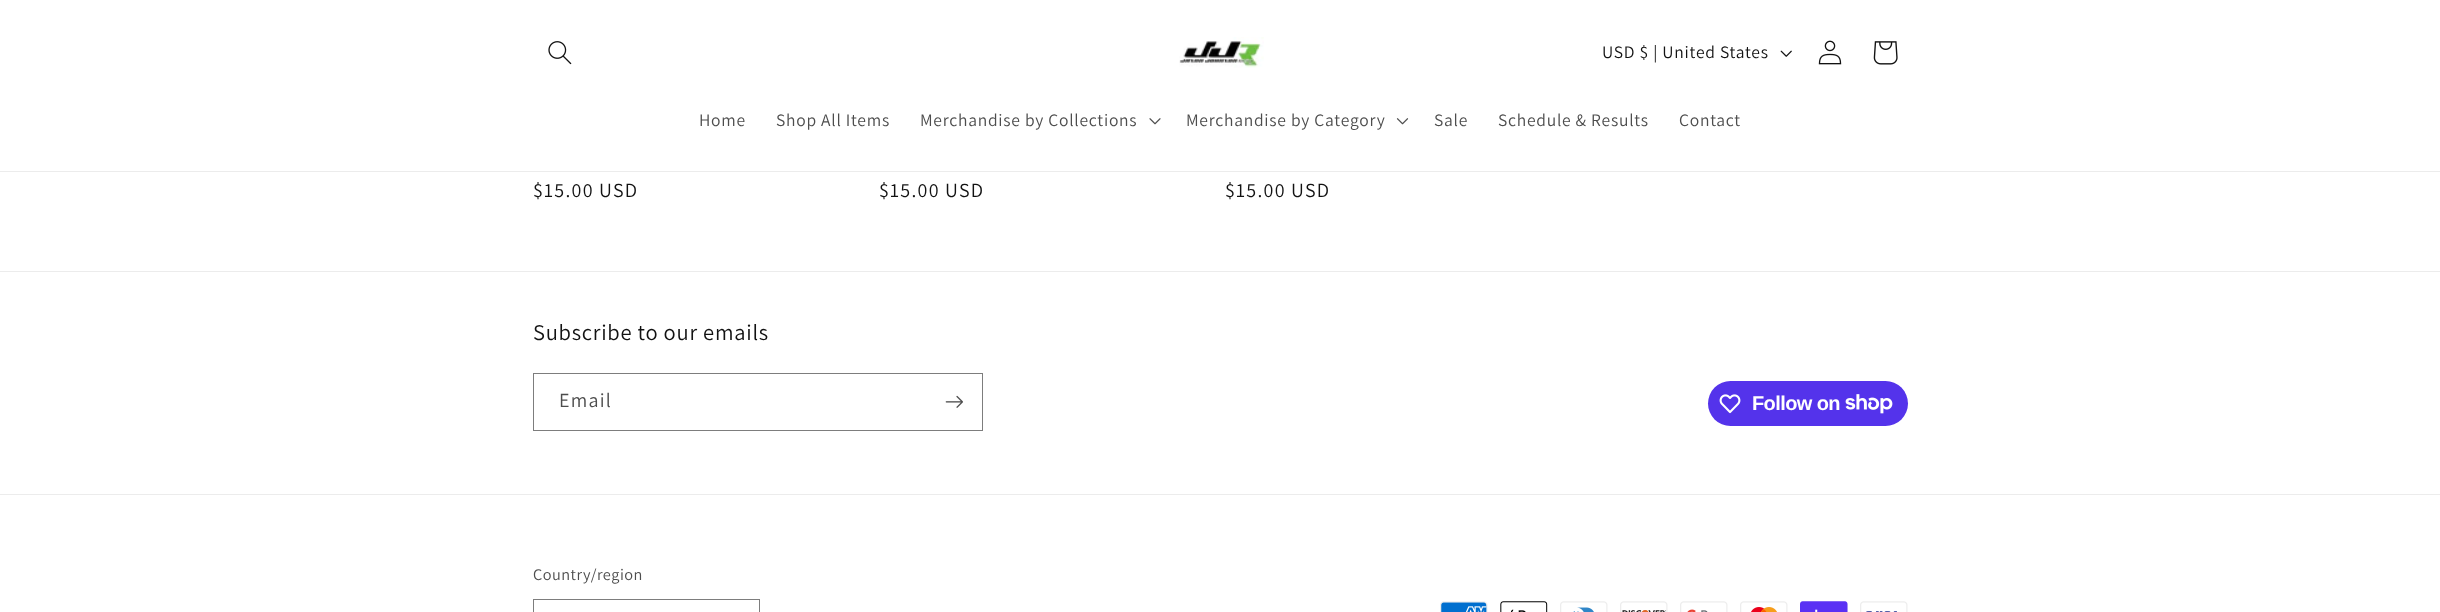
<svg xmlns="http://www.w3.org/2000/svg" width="2440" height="612">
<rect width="100%" height="100%" fill="#fff"/>
<rect y="171" width="2440" height="1" fill="#ececec"/>
<image x="548" y="41" width="24" height="24" href="media/1.png"/>
<image x="1179" y="37" width="85" height="31" href="media/2.png"/>
<text x="1602" y="58" style="font-family:Assistant;font-size:17.5px;letter-spacing:0.75px;fill:#121212">USD $ | United States</text>
<image x="1780" y="50" width="12" height="7" href="media/3.png"/>
<image x="1818" y="40" width="24" height="25" href="media/4.png"/>
<image x="1873" y="41" width="25" height="24" href="media/5.png"/>
<text x="699" y="126" style="font-family:Assistant;font-size:17.5px;letter-spacing:0.75px;fill:#4d4d4d">Home</text>
<text x="776" y="126" style="font-family:Assistant;font-size:17.5px;letter-spacing:0.75px;fill:#4d4d4d">Shop All Items</text>
<text x="920" y="126" style="font-family:Assistant;font-size:17.5px;letter-spacing:0.75px;fill:#4d4d4d">Merchandise by Collections</text>
<image x="1149" y="118" width="12" height="7" href="media/6.png"/>
<text x="1186" y="126" style="font-family:Assistant;font-size:17.5px;letter-spacing:0.75px;fill:#4d4d4d">Merchandise by Category</text>
<image x="1396" y="118" width="13" height="7" href="media/7.png"/>
<text x="1434" y="126" style="font-family:Assistant;font-size:17.5px;letter-spacing:0.75px;fill:#4d4d4d">Sale</text>
<text x="1498" y="126" style="font-family:Assistant;font-size:17.5px;letter-spacing:0.75px;fill:#4d4d4d">Schedule &amp; Results</text>
<text x="1679" y="126" style="font-family:Assistant;font-size:17.5px;letter-spacing:0.75px;fill:#4d4d4d">Contact</text>
<text x="533" y="197" style="font-family:Assistant;font-size:20px;letter-spacing:1.25px;fill:#121212">$15.00 USD</text>
<text x="879" y="197" style="font-family:Assistant;font-size:20px;letter-spacing:1.25px;fill:#121212">$15.00 USD</text>
<text x="1225" y="197" style="font-family:Assistant;font-size:20px;letter-spacing:1.25px;fill:#121212">$15.00 USD</text>
<rect y="271" width="2440" height="1" fill="#ececec"/>
<text x="533" y="340" style="font-family:Assistant;font-size:22.5px;letter-spacing:0.75px;fill:#121212">Subscribe to our emails</text>
<rect x="533.5" y="373.5" width="449" height="57" fill="none" stroke="#7d7d7d"/>
<text x="559" y="407" style="font-family:Assistant;font-size:20px;letter-spacing:1.25px;fill:#4d4d4d">Email</text>
<image x="945" y="395" width="18" height="13" href="media/8.png"/>
<rect x="1708" y="381" width="200" height="45" rx="22.5" fill="#5433eb"/>
<image x="1719" y="394" width="22" height="20" href="media/9.png"/>
<text x="1752" y="410" style="font-family:Liberation Sans;font-size:20px;font-weight:bold;letter-spacing:-0.6px;fill:#fff">Follow on</text>
<image x="1845" y="394" width="48" height="20" href="media/10.png"/>
<rect y="494" width="2440" height="1" fill="#ececec"/>
<text x="533" y="580" style="font-family:Assistant;font-size:16.25px;letter-spacing:0.5px;fill:#4d4d4d">Country/region</text>
<rect x="533.5" y="599.5" width="226" height="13" fill="none" stroke="#7d7d7d"/>
<image x="1440" y="601" width="48" height="11" href="media/11.png"/>
<image x="1500" y="601" width="48" height="11" href="media/12.png"/>
<image x="1560" y="601" width="48" height="11" href="media/13.png"/>
<image x="1620" y="601" width="48" height="11" href="media/14.png"/>
<image x="1680" y="601" width="48" height="11" href="media/15.png"/>
<image x="1740" y="601" width="48" height="11" href="media/16.png"/>
<image x="1800" y="601" width="48" height="11" href="media/17.png"/>
<image x="1860" y="601" width="48" height="11" href="media/18.png"/>
</svg>
